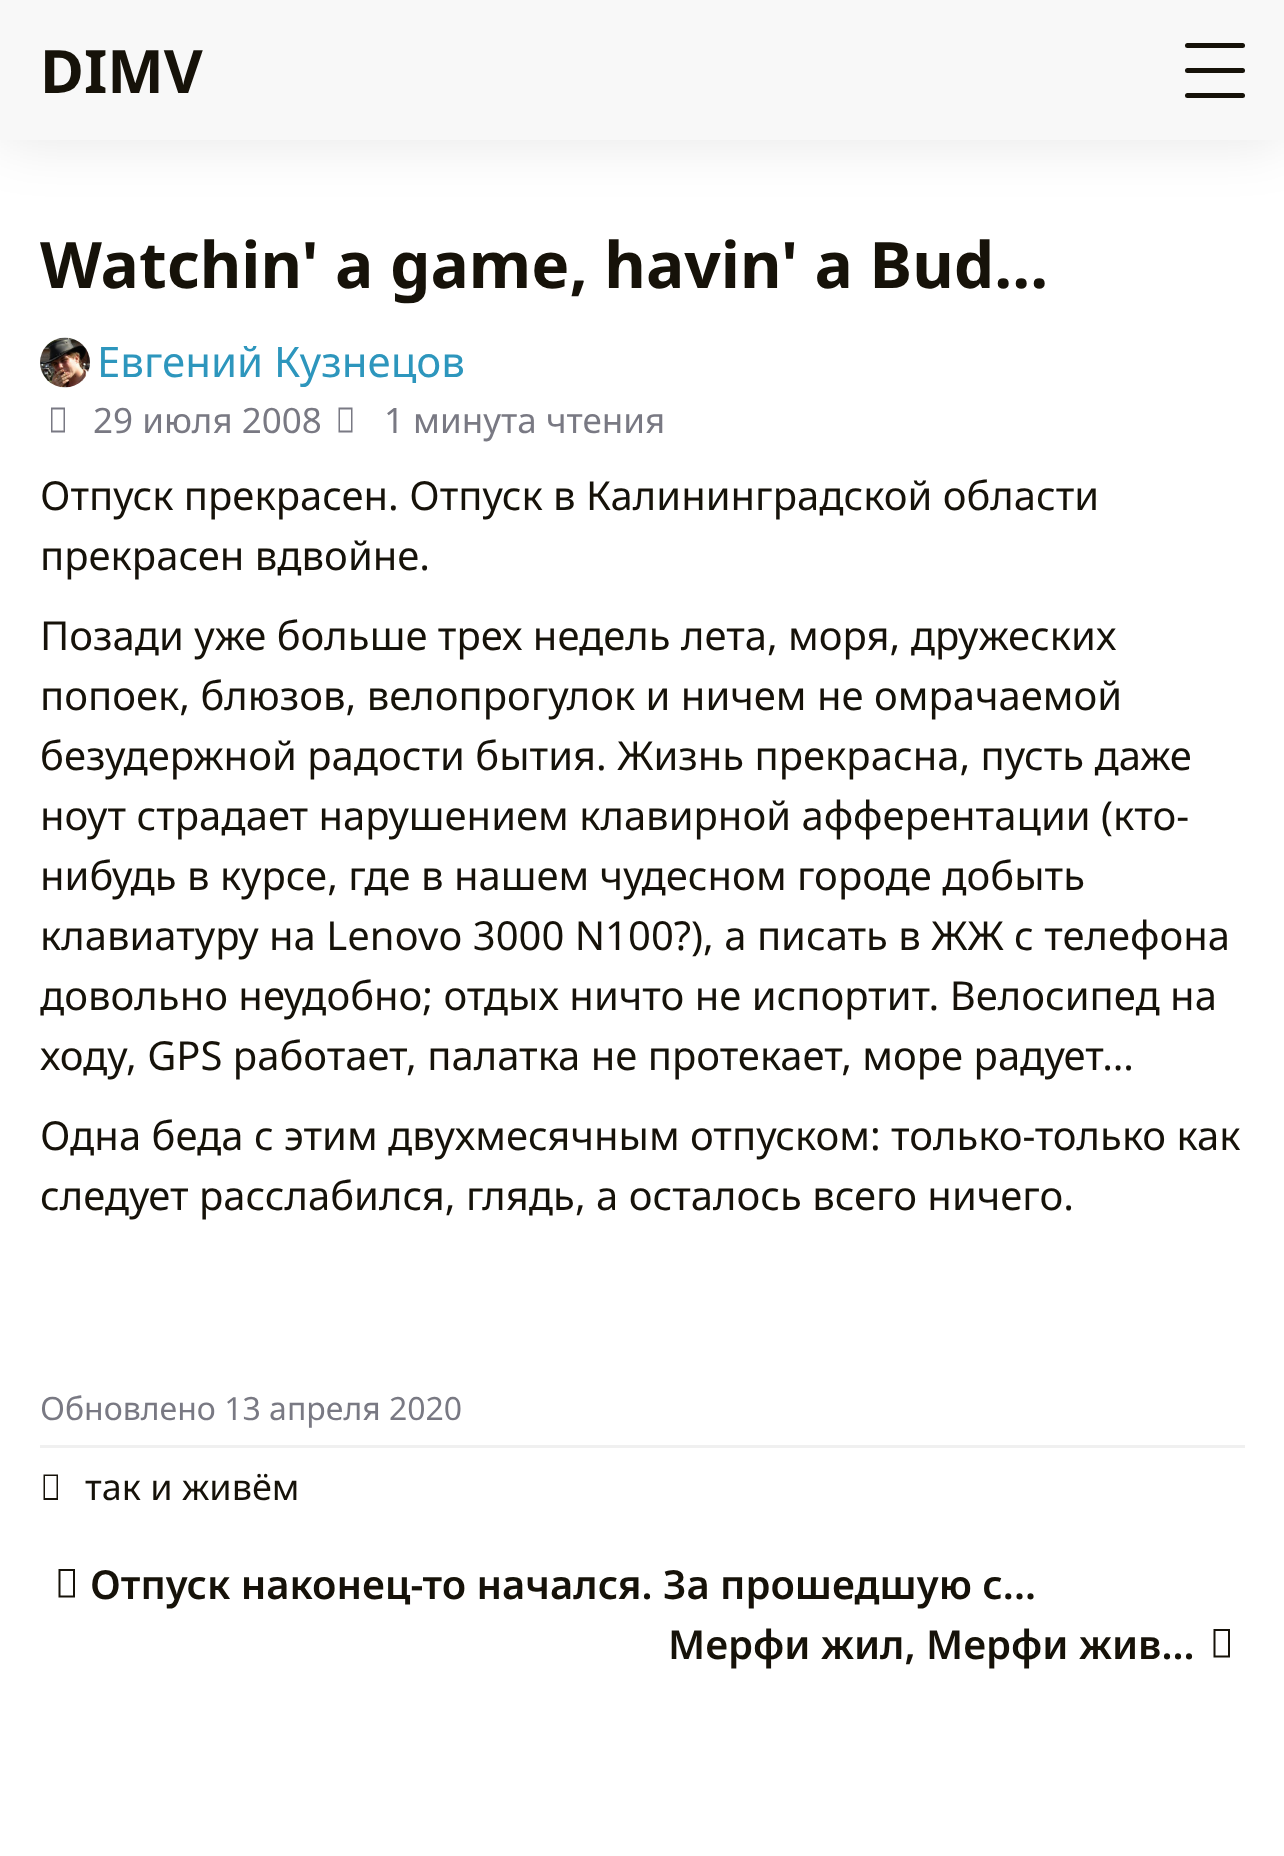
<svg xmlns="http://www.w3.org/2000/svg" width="1284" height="1856">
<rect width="100%" height="100%" fill="#fff"/>
<rect width="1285" height="140" fill="#0000001a" filter="blur(30px)"/>
<rect width="1284" height="140" fill="#f8f8f8"/>
<text x="40" y="93" style="font-family:Noto Sans;font-size:60px;font-weight:bold;fill:#161209">DIMV</text>
<rect x="1185" y="43" width="60" height="5" rx="2.5" fill="#161209"/>
<rect x="1185" y="68" width="60" height="5" rx="2.5" fill="#161209"/>
<rect x="1185" y="93" width="60" height="5" rx="2.5" fill="#161209"/>
<text x="40" y="288" style="font-family:Noto Sans;font-size:64px;font-weight:bold;fill:#161209">Watchin' a game, havin' a Bud...</text>
<image x="40" y="337" width="50" height="51" href="media/1.png"/>
<text x="97" y="377" style="font-family:Noto Sans;font-size:42px;fill:#2d96bd">Евгений Кузнецов</text>
<path d="M51 432.5v-25h14v25zm1.5-2h11v-21h-11z" fill="#797983"/>
<text x="93" y="433" style="font-family:Noto Sans;font-size:35px;fill:#797983">29 июля 2008</text>
<path d="M338.5 432.5v-25h14v25zm1.5-2h11v-21h-11z" fill="#797983"/>
<text x="384" y="433" style="font-family:Noto Sans;font-size:35px;fill:#797983">1 минута чтения</text>
<text x="40" y="510" style="font-family:Noto Sans;font-size:40px;fill:#161209">Отпуск прекрасен. Отпуск в Калининградской области</text>
<text x="40" y="570" style="font-family:Noto Sans;font-size:40px;fill:#161209">прекрасен вдвойне.</text>
<text x="40" y="650" style="font-family:Noto Sans;font-size:40px;fill:#161209">Позади уже больше трех недель лета, моря, дружеских</text>
<text x="40" y="710" style="font-family:Noto Sans;font-size:40px;fill:#161209">попоек, блюзов, велопрогулок и ничем не омрачаемой</text>
<text x="40" y="770" style="font-family:Noto Sans;font-size:40px;fill:#161209">безудержной радости бытия. Жизнь прекрасна, пусть даже</text>
<text x="40" y="830" style="font-family:Noto Sans;font-size:40px;fill:#161209">ноут страдает нарушением клавирной афферентации (кто-</text>
<text x="40" y="890" style="font-family:Noto Sans;font-size:40px;fill:#161209">нибудь в курсе, где в нашем чудесном городе добыть</text>
<text x="40" y="950" style="font-family:Noto Sans;font-size:40px;fill:#161209">клавиатуру на Lenovo 3000 N100?), а писать в ЖЖ с телефона</text>
<text x="40" y="1010" style="font-family:Noto Sans;font-size:40px;fill:#161209">довольно неудобно; отдых ничто не испортит. Велосипед на</text>
<text x="40" y="1070" style="font-family:Noto Sans;font-size:40px;fill:#161209">ходу, GPS работает, палатка не протекает, море радует…</text>
<text x="40" y="1150" style="font-family:Noto Sans;font-size:40px;fill:#161209">Одна беда с этим двухмесячным отпуском: только-только как</text>
<text x="40" y="1210" style="font-family:Noto Sans;font-size:40px;fill:#161209">следует расслабился, глядь, а осталось всего ничего.</text>
<rect x="40" y="1445" width="1205" height="3" fill="#f0f0f0"/>
<text x="40" y="1420" style="font-family:Noto Sans;font-size:32px;fill:#797983">Oбновлено 13 апреля 2020</text>
<path d="M43.5 1500v-25.5h14.5v25.5zm1.5-2h11.5v-22h-11.5z" fill="#161209"/>
<text x="85" y="1500" style="font-family:Noto Sans;font-size:36px;fill:#161209">так и живём</text>
<path d="M58.5 1597.5v-28.5h16.5v28.5zm2-2h12.5v-24.5h-12.5z" fill="#161209"/>
<text x="90" y="1599" style="font-family:Noto Sans;font-size:40px;font-weight:600;fill:#161209">Отпуск наконец-то начался. За прошедшую с...</text>
<text x="668" y="1659" style="font-family:Noto Sans;font-size:40px;font-weight:600;fill:#161209">Мерфи жил, Мерфи жив...</text>
<path d="M1213.5 1657.5v-28.5h16.5v28.5zm2-2h12.5v-24.5h-12.5z" fill="#161209"/>
</svg>
